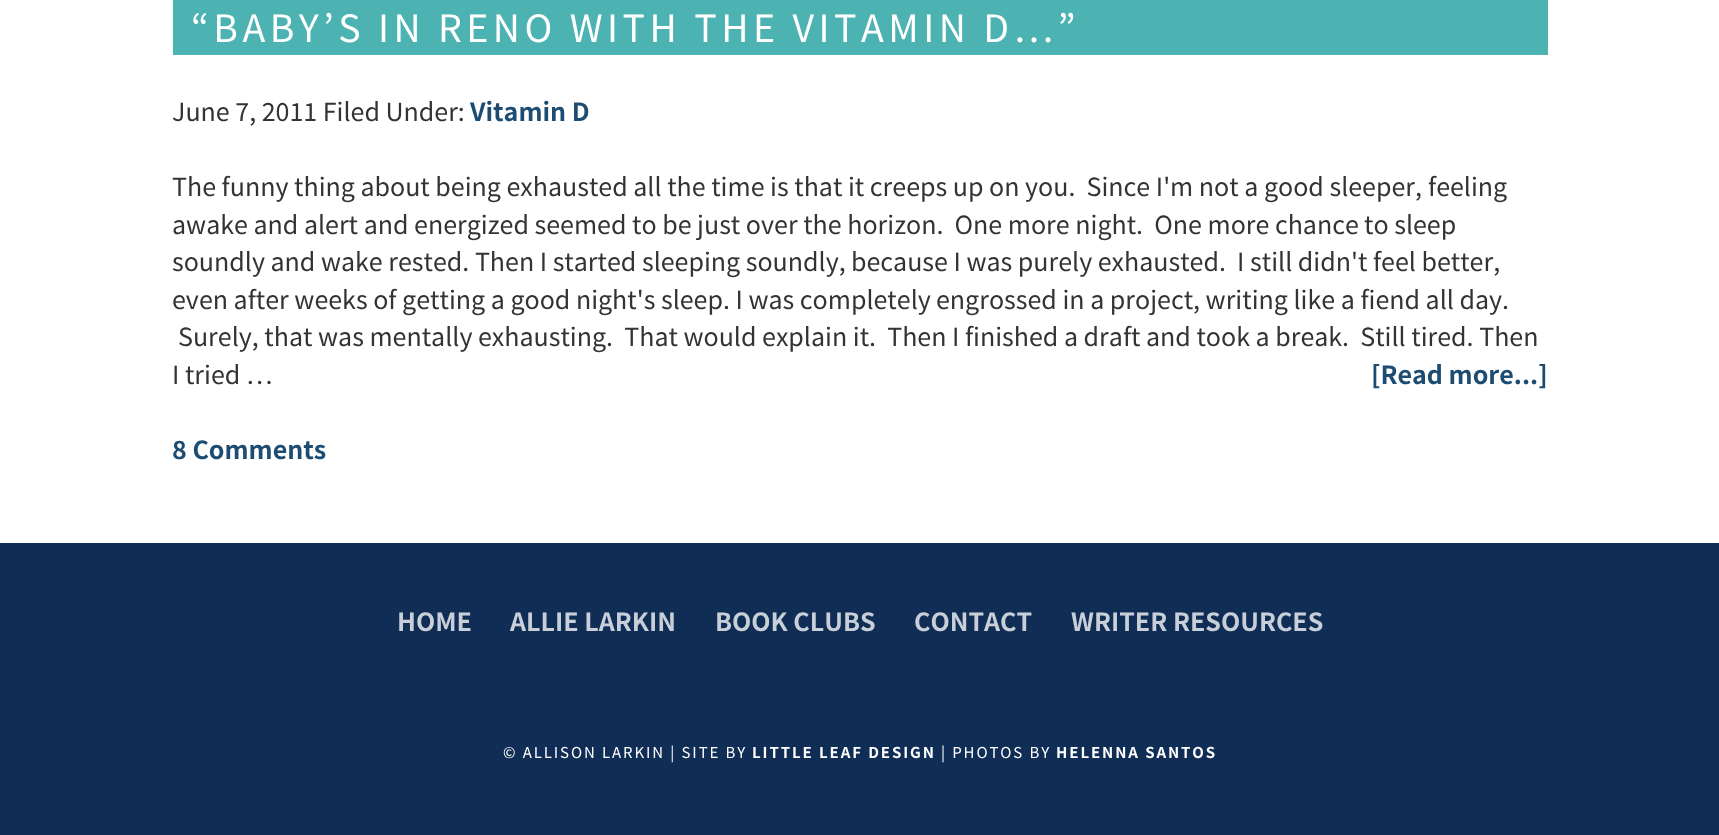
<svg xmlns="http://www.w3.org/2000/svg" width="1719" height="835">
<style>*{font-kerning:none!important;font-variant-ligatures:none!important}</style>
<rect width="100%" height="100%" fill="#fff"/>
<rect x="173" width="1375" height="55" fill="#4cb2b2"/>
<text x="191" y="42" style="font-family:Noto Sans JP;font-size:37.5px;letter-spacing:4.5px;fill:#fff">“BABY’S IN RENO WITH THE VITAMIN D…”</text>
<text x="172" y="121" style="font-family:Noto Sans JP;font-size:25px;fill:#333">June 7, 2011 Filed Under:</text>
<text x="470" y="121" style="font-family:Noto Sans JP;font-size:25px;font-weight:bold;fill:#1c4c72">Vitamin D</text>
<text x="172" y="196" style="font-family:Noto Sans JP;font-size:25px;fill:#333" xml:space="preserve">The funny thing about being exhausted all the time is that it creeps up on you.  Since I'm not a good sleeper,</text>
<text x="1428" y="196" style="font-family:Noto Sans JP;font-size:25px;fill:#333">feeling</text>
<text x="172" y="234" style="font-family:Noto Sans JP;font-size:25px;fill:#333" xml:space="preserve">awake and alert and energized seemed to be just over the horizon.  One more night.  One more chance</text>
<text x="1364" y="234" style="font-family:Noto Sans JP;font-size:25px;fill:#333">to sleep</text>
<text x="172" y="271" style="font-family:Noto Sans JP;font-size:25px;fill:#333">soundly and wake rested. Then I started sleeping soundly,</text>
<text x="851" y="271" style="font-family:Noto Sans JP;font-size:25px;fill:#333" xml:space="preserve">because I was purely exhausted.  I still didn't feel better,</text>
<text x="172" y="309" style="font-family:Noto Sans JP;font-size:25px;fill:#333">even after weeks of getting a good night's sleep. I was completely</text>
<text x="936" y="309" style="font-family:Noto Sans JP;font-size:25px;fill:#333">engrossed in a project, writing like a fiend all day.</text>
<text x="178" y="346" style="font-family:Noto Sans JP;font-size:25px;fill:#333" xml:space="preserve">Surely, that was mentally exhausting.  That would explain it.  Then I finished a draft</text>
<text x="1146" y="346" style="font-family:Noto Sans JP;font-size:25px;fill:#333" xml:space="preserve">and took a break.  Still tired. Then</text>
<text x="172" y="384" style="font-family:Noto Sans JP;font-size:25px;fill:#333">I tried …</text>
<text x="1371" y="384" style="font-family:Noto Sans JP;font-size:25px;font-weight:bold;fill:#1c4c72">[Read more...]</text>
<text x="172" y="459" style="font-family:Noto Sans JP;font-size:25px;font-weight:bold;fill:#1c4c72">8 Comments</text>
<rect y="543" width="1719" height="292" fill="#102d55"/>
<text x="397" y="631" style="font-family:Noto Sans JP;font-size:25px;font-weight:bold;fill:#c8cfd8">HOME</text>
<text x="510" y="631" style="font-family:Noto Sans JP;font-size:25px;font-weight:bold;fill:#c8cfd8">ALLIE LARKIN</text>
<text x="715" y="631" style="font-family:Noto Sans JP;font-size:25px;font-weight:bold;fill:#c8cfd8">BOOK CLUBS</text>
<text x="914" y="631" style="font-family:Noto Sans JP;font-size:25px;font-weight:bold;fill:#c8cfd8">CONTACT</text>
<text x="1071" y="631" style="font-family:Noto Sans JP;font-size:25px;font-weight:bold;fill:#c8cfd8">WRITER RESOURCES</text>
<text x="503" y="758" style="font-family:Noto Sans JP;font-size:15px;letter-spacing:1.9px;fill:#fff">© ALLISON LARKIN | SITE BY</text>
<text x="752" y="758" style="font-family:Noto Sans JP;font-size:15px;font-weight:bold;letter-spacing:1.9px;fill:#fff">LITTLE LEAF DESIGN</text>
<text x="941" y="758" style="font-family:Noto Sans JP;font-size:15px;letter-spacing:1.9px;fill:#fff">| PHOTOS BY</text>
<text x="1056" y="758" style="font-family:Noto Sans JP;font-size:15px;font-weight:bold;letter-spacing:1.9px;fill:#fff">HELENNA SANTOS</text>
</svg>
